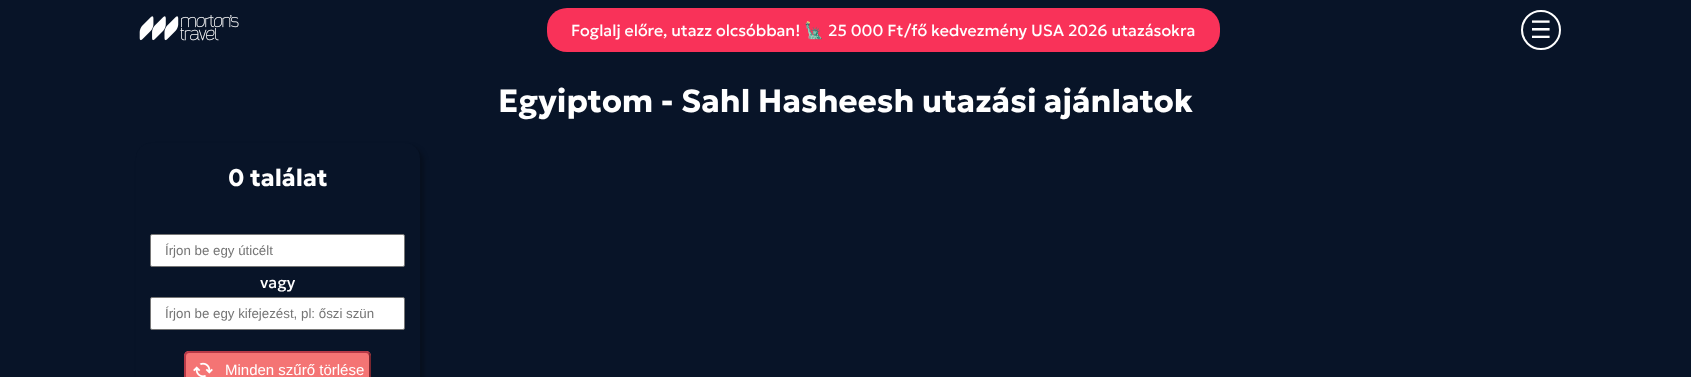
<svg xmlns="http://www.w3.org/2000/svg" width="1691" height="377">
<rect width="100%" height="100%" fill="#081428"/>
<image x="139" y="15" width="100" height="26" href="media/1.png"/>
<rect x="547" y="8" width="673" height="44" rx="20" fill="#f93259"/>
<text x="571" y="36" style="font-family:Geologica;font-size:16px;fill:#fff">Foglalj előre, utazz olcsóbban!</text>
<text x="804" y="36" style="font-family:Noto Color Emoji;font-size:16px;fill:#fff">🗽</text>
<text x="828" y="36" style="font-family:Geologica;font-size:16px;fill:#fff">25 000 Ft/fő kedvezmény USA 2026 utazásokra</text>
<circle cx="1541" cy="30" r="19" fill="none" stroke="#fff" stroke-width="2"/>
<text x="1530" y="38" style="font-family:DejaVu Sans;font-size:24px;fill:#fff">☰</text>
<text x="498" y="112" style="font-family:Geologica;font-size:32px;font-weight:bold;fill:#fff">Egyiptom - Sahl Hasheesh utazási ajánlatok</text>
<rect x="140" y="147" width="284" height="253" rx="15" fill="#00000045" filter="blur(2.5px)"/>
<rect x="136" y="143" width="284" height="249" rx="15" fill="#081428"/>
<text x="228" y="186" style="font-family:Geologica;font-size:24px;font-weight:bold;fill:#fff">0 találat</text>
<rect x="150.5" y="234.5" width="254" height="32" rx="1.5" fill="#fff" stroke="#767676"/>
<text x="165" y="255" style="font-family:Liberation Sans;font-size:13.3px;fill:#757575">Írjon be egy úticélt</text>
<text x="260" y="288" style="font-family:Geologica;font-size:16px;fill:#fff">vagy</text>
<rect x="150.5" y="297.5" width="254" height="32" rx="1.5" fill="#fff" stroke="#767676"/>
<text x="165" y="318" style="font-family:Liberation Sans;font-size:13.3px;fill:#757575">Írjon be egy kifejezést, pl: őszi szün</text>
<rect x="184" y="351" width="187" height="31" rx="5" fill="#f47474"/>
<path d="M369 353c.5 1 1 2 1 3v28c0 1-.5 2-1 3c-1 .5-2 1-3 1h-177c-1 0-2-.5-3-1" fill="none" stroke="#7a262f" stroke-width="2"/>
<path d="M186 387c-.5-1-1-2-1-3v-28c0-1 .5-2 1-3c1-.5 2-1 3-1h177c1 0 2 .5 3 1" fill="none" stroke="#b73947" stroke-width="2"/>
<image x="193" y="362" width="20" height="15" href="media/2.png"/>
<text x="225" y="375" style="font-family:Liberation Sans;font-size:15px;fill:#fff">Minden szűrő törlése</text>
</svg>
